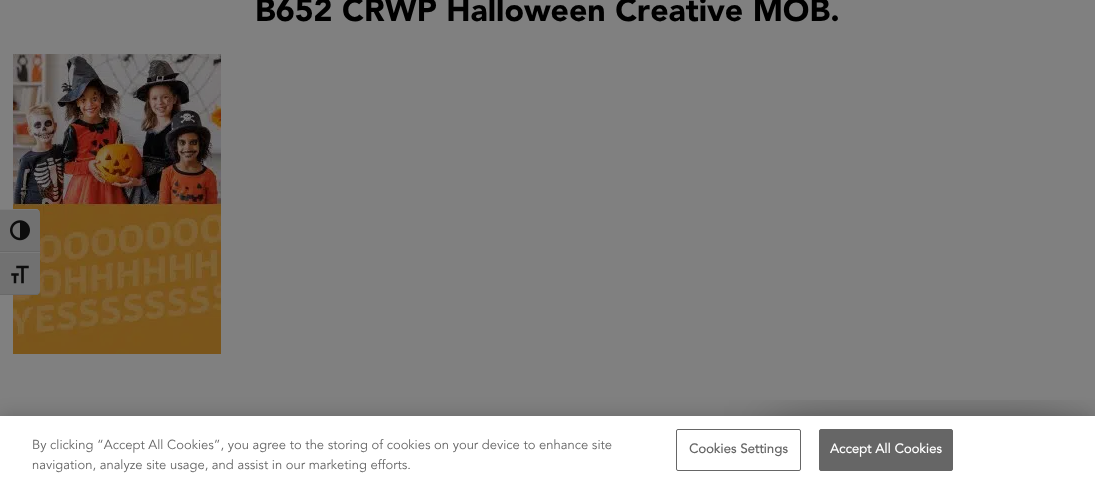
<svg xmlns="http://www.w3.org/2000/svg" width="1095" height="487">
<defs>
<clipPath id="clip1"><rect x="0" y="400" width="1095" height="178"/></clipPath>
</defs>
<rect width="100%" height="100%" fill="#808080"/>
<text x="255" y="21" style="font-family:'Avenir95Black';font-size:32px;font-weight:900;fill:#000">B652 CRWP Halloween Creative MOB.</text>
<image x="13" y="54" width="208" height="300" href="media/1.png"/>
<g clip-path="url(#clip1)">
<rect x="777" y="425" width="293" height="54" fill="#0000004a" filter="blur(28px)"/>
</g>
<path d="M0 209h36c2 0 4 2 4 4v39h-40z" fill="#717171"/>
<path d="M0 209v1h36c2 0 4 1 4 3c0-2-2-4-4-4z" fill="#7b7b7b"/>
<rect y="251" width="40" height="1" fill="#696969"/>
<image x="10" y="220" width="20" height="21" href="media/2.png"/>
<path d="M0 252h40v39c0 2-2 4-4 4h-36z" fill="#717171"/>
<rect y="252" width="40" height="1" fill="#7b7b7b"/>
<path d="M0 294v1h36c2 0 4-2 4-4c0 2-2 3-4 3z" fill="#696969"/>
<image x="11" y="265" width="18" height="19" href="media/3.png"/>
<rect y="416" width="1095" height="71" fill="#00000033" filter="blur(9px)"/>
<rect y="416" width="1095" height="71" fill="#fff"/>
<text x="32" y="449" style="font-family:'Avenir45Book';font-size:13px;fill:#666">By clicking “Accept All Cookies”, you agree to the storing of cookies on your device to enhance site</text>
<text x="32" y="469" style="font-family:'Avenir45Book';font-size:13px;fill:#666">navigation, analyze site usage, and assist in our marketing efforts.</text>
<rect x="676.5" y="429.5" width="124" height="41" rx="1.5" fill="none" stroke="#666"/>
<text x="689" y="453" style="font-family:'Avenir45Book';font-size:13px;font-weight:bold;letter-spacing:0.1px;fill:#666">Cookies Settings</text>
<rect x="819.5" y="429.5" width="133" height="41" rx="1.5" fill="#666" stroke="#666"/>
<text x="830" y="453" style="font-family:'Avenir45Book';font-size:13px;font-weight:bold;letter-spacing:0.1px;fill:#fff">Accept All Cookies</text>
</svg>
